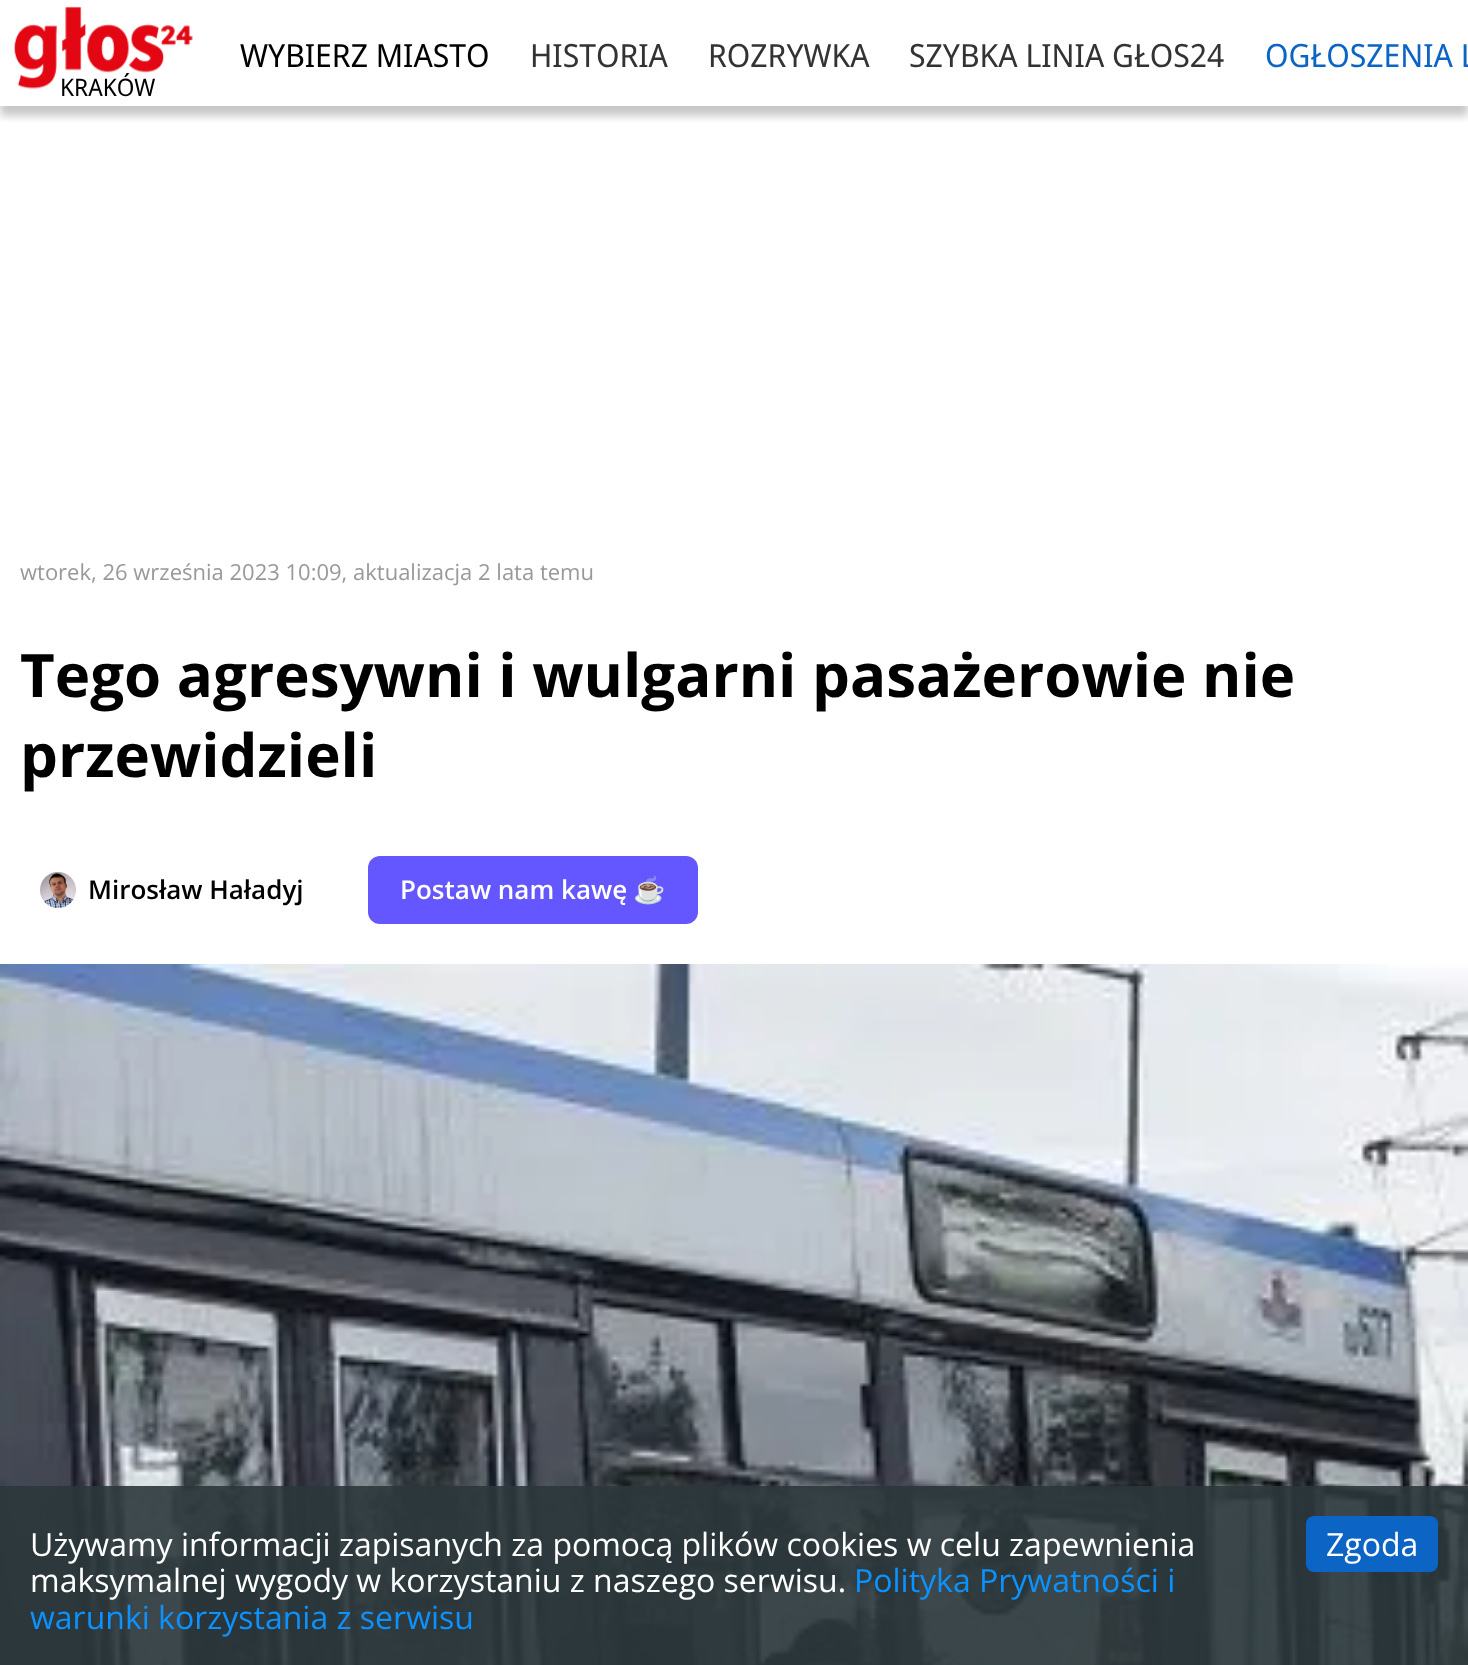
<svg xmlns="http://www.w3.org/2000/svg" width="1468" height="1665">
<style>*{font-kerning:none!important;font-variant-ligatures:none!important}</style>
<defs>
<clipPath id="clip1"><rect x="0" y="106" width="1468" height="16"/></clipPath>
</defs>
<rect width="100%" height="100%" fill="#fff"/>
<g clip-path="url(#clip1)">
<rect y="10" width="1468" height="106" fill="#4646464d" filter="blur(4px)"/>
</g>
<image x="14" y="6" width="179" height="84" href="media/1.png"/>
<text x="240" y="67" style="font-family:Noto Sans Display;font-size:32px;fill:#000">WYBIERZ MIASTO</text>
<text x="530" y="67" style="font-family:Noto Sans Display;font-size:32px;fill:#343333">HISTORIA</text>
<text x="708" y="67" style="font-family:Noto Sans Display;font-size:32px;fill:#343333">ROZRYWKA</text>
<text x="909" y="67" style="font-family:Noto Sans Display;font-size:32px;fill:#343333">SZYBKA LINIA GŁOS24</text>
<text x="1265" y="67" style="font-family:Noto Sans Display;font-size:32px;fill:#0c65c5">OGŁOSZENIA L</text>
<text x="60" y="96" style="font-family:Noto Sans Display;font-size:24px;fill:#000">KRAKÓW</text>
<text x="20" y="580" style="font-family:Open Sans;font-size:22px;fill:#999">wtorek, 26 września 2023 10:09, aktualizacja 2 lata temu</text>
<text x="20" y="697" style="font-family:Open Sans;font-size:60px;font-weight:bold;fill:#000">Tego agresywni i wulgarni pasażerowie nie</text>
<text x="20" y="777" style="font-family:Open Sans;font-size:60px;font-weight:bold;fill:#000">przewidzieli</text>
<image x="40" y="872" width="36" height="36" href="media/2.png"/>
<text x="88" y="899" style="font-family:Open Sans;font-size:26px;font-weight:600;fill:#000">Mirosław Haładyj</text>
<rect x="368" y="856" width="330" height="68" rx="12" fill="#6457ff"/>
<text x="400" y="899" style="font-family:Open Sans;font-size:26px;font-weight:600;fill:#fff">Postaw nam kawę</text>
<text x="633" y="899" style="font-family:Noto Color Emoji;font-size:26px;font-weight:bold;fill:#fff">☕</text>
<image x="0" y="964" width="1468" height="701" href="media/3.png"/>
<rect y="1486" width="1468" height="179" fill="#2b373be6"/>
<text x="30" y="1556" style="font-family:Open Sans;font-size:32px;fill:#fff">Używamy informacji zapisanych za pomocą plików cookies w celu zapewnienia</text>
<text x="30" y="1592" style="font-family:Open Sans;font-size:32px;fill:#fff">maksymalnej wygody w korzystaniu z naszego serwisu.</text>
<text x="854" y="1592" style="font-family:Open Sans;font-size:32px;fill:#0c92ff">Polityka Prywatności i</text>
<text x="30" y="1629" style="font-family:Open Sans;font-size:32px;fill:#0c92ff">warunki korzystania z serwisu</text>
<rect x="1306" y="1516" width="132" height="56" rx="8" fill="#0c65c5"/>
<text x="1326" y="1556" style="font-family:Open Sans;font-size:32px;fill:#fff">Zgoda</text>
</svg>
